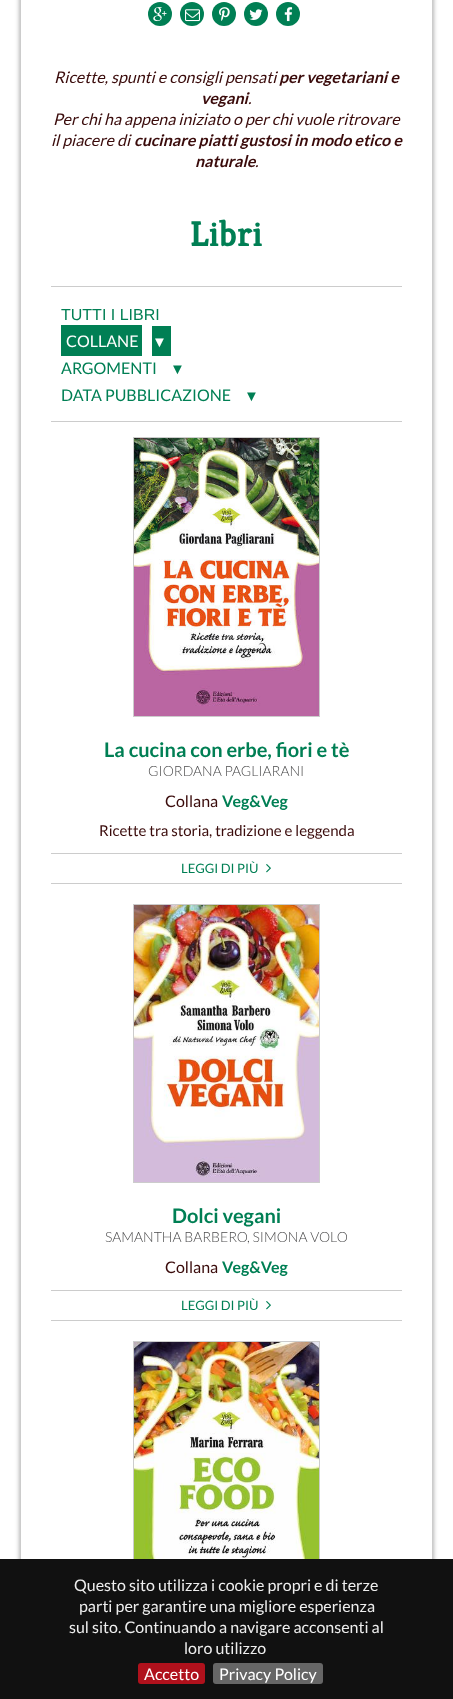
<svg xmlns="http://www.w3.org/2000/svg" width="453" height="1699">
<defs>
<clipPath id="clip1"><path d="M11 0h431v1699h-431zm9-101h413v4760h-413z" clip-rule="evenodd"/></clipPath>
</defs>
<rect width="100%" height="100%" fill="#fff"/>
<g clip-path="url(#clip1)">
<rect x="20" y="-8" width="413" height="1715" fill="#00000066" filter="blur(2.5px)"/>
</g>
<rect x="20.5" y="-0.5" width="412" height="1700" fill="none" stroke="#ccc"/>
<circle cx="160" cy="14" r="12" fill="#007f54"/>
<image x="153" y="7" width="14" height="15" href="media/1.png"/>
<circle cx="192" cy="14" r="12" fill="#007f54"/>
<image x="185" y="9" width="15" height="13" href="media/2.png"/>
<circle cx="224" cy="14" r="12" fill="#007f54"/>
<image x="219" y="7" width="11" height="14" href="media/3.png"/>
<circle cx="256" cy="14" r="12" fill="#007f54"/>
<image x="249" y="9" width="14" height="11" href="media/4.png"/>
<circle cx="288" cy="14" r="12" fill="#007f54"/>
<image x="284" y="7" width="9" height="15" href="media/5.png"/>
<text x="54" y="83" style="font-family:Lato;font-size:16px;font-style:italic;fill:#3a0b0b">Ricette, spunti e consigli pensati</text>
<text x="279" y="83" style="font-family:Lato;font-size:16px;font-weight:bold;font-style:italic;fill:#3a0b0b">per vegetariani e</text>
<text x="201" y="104" style="font-family:Lato;font-size:16px;font-weight:bold;font-style:italic;fill:#3a0b0b">vegani</text>
<text x="248" y="104" style="font-family:Lato;font-size:16px;font-style:italic;fill:#3a0b0b">.</text>
<text x="53" y="125" style="font-family:Lato;font-size:16px;font-style:italic;fill:#3a0b0b">Per chi ha appena iniziato o per chi vuole ritrovare</text>
<text x="51" y="146" style="font-family:Lato;font-size:16px;font-style:italic;fill:#3a0b0b">il piacere di</text>
<text x="134" y="146" style="font-family:Lato;font-size:16px;font-weight:bold;font-style:italic;fill:#3a0b0b">cucinare piatti gustosi in modo etico e</text>
<text x="195" y="167" style="font-family:Lato;font-size:16px;font-weight:bold;font-style:italic;fill:#3a0b0b">naturale</text>
<text x="255" y="167" style="font-family:Lato;font-size:16px;font-style:italic;fill:#3a0b0b">.</text>
<text x="190" y="246" style="font-family:Kreon;font-size:36px;font-weight:bold;fill:#007f54">Libri</text>
<rect x="51" y="286" width="351" height="1" fill="#ccc"/>
<rect x="51" y="421" width="351" height="1" fill="#ccc"/>
<text x="61" y="320" style="font-family:Liberation Sans;font-size:16px;fill:#007f54">TUTTI I LIBRI</text>
<rect x="61" y="325" width="81" height="31" fill="#007f54"/>
<text x="66" y="347" style="font-family:Lato;font-size:16px;fill:#fff">COLLANE</text>
<rect x="152" y="326" width="19" height="30" fill="#007f54"/>
<text x="152" y="347" style="font-family:Liberation Sans;font-size:15px;fill:#fff">▼</text>
<text x="61" y="374" style="font-family:Lato;font-size:16px;fill:#007f54">ARGOMENTI</text>
<text x="170" y="374" style="font-family:Liberation Sans;font-size:15px;fill:#007f54">▼</text>
<text x="61" y="401" style="font-family:Lato;font-size:16px;fill:#007f54">DATA PUBBLICAZIONE</text>
<text x="244" y="401" style="font-family:Liberation Sans;font-size:15px;fill:#007f54">▼</text>
<rect x="133.5" y="437.5" width="186" height="279" fill="none" stroke="#ccc"/>
<image x="134" y="438" width="185" height="278" href="media/6.png"/>
<text x="104" y="757" style="font-family:Lato;font-size:20px;font-weight:bold;fill:#007f54">La cucina con erbe, fiori e tè</text>
<text x="148" y="776" style="font-family:Lato;font-size:14px;font-weight:300;fill:#4d4d4e">GIORDANA PAGLIARANI</text>
<text x="165" y="807" style="font-family:Lato;font-size:16px;fill:#3a0b0b">Collana</text>
<text x="222" y="807" style="font-family:Lato;font-size:16px;font-weight:bold;fill:#007f54">Veg&amp;Veg</text>
<text x="99" y="836" style="font-family:Lato;font-size:15px;fill:#3a0b0b">Ricette tra storia, tradizione e leggenda</text>
<rect x="51" y="853" width="351" height="1" fill="#ccc"/>
<rect x="51" y="883" width="351" height="1" fill="#ccc"/>
<text x="181" y="873" style="font-family:Lato;font-size:13px;fill:#007f54">LEGGI DI PIÙ</text>
<image x="266" y="864" width="5" height="9" href="media/7.png"/>
<rect x="133.5" y="904.5" width="186" height="278" fill="none" stroke="#ccc"/>
<image x="134" y="905" width="185" height="277" href="media/8.png"/>
<text x="172" y="1223" style="font-family:Lato;font-size:20px;font-weight:bold;fill:#007f54">Dolci vegani</text>
<text x="105" y="1242" style="font-family:Lato;font-size:14px;font-weight:300;fill:#4d4d4e">SAMANTHA BARBERO</text>
<text x="247" y="1242" style="font-family:Lato;font-size:14px;font-weight:300;fill:#4d4d4e">, SIMONA VOLO</text>
<text x="165" y="1273" style="font-family:Lato;font-size:16px;fill:#3a0b0b">Collana</text>
<text x="222" y="1273" style="font-family:Lato;font-size:16px;font-weight:bold;fill:#007f54">Veg&amp;Veg</text>
<rect x="51" y="1290" width="351" height="1" fill="#ccc"/>
<rect x="51" y="1320" width="351" height="1" fill="#ccc"/>
<text x="181" y="1310" style="font-family:Lato;font-size:13px;fill:#007f54">LEGGI DI PIÙ</text>
<image x="266" y="1301" width="5" height="9" href="media/7.png"/>
<rect x="133.5" y="1341.5" width="186" height="278" fill="none" stroke="#ccc"/>
<image x="134" y="1342" width="185" height="217" href="media/9.png"/>
<rect y="1559" width="453" height="140" fill="#111"/>
<text x="74" y="1591" style="font-family:Lato;font-size:16px;fill:#eee">Questo sito utilizza i cookie propri e di terze</text>
<text x="79" y="1612" style="font-family:Lato;font-size:16px;fill:#eee">parti per garantire una migliore esperienza</text>
<text x="69" y="1633" style="font-family:Lato;font-size:16px;fill:#eee">sul sito. Continuando a navigare acconsenti al</text>
<text x="184" y="1654" style="font-family:Lato;font-size:16px;fill:#eee">loro utilizzo</text>
<rect x="138" y="1663" width="67" height="21" rx="3" fill="#b0111c"/>
<text x="144" y="1680" style="font-family:Lato;font-size:16px;fill:#fff">Accetto</text>
<rect x="213" y="1663" width="110" height="21" rx="3" fill="#666"/>
<text x="219" y="1680" style="font-family:Lato;font-size:16px;fill:#fff">Privacy Policy</text>
</svg>
